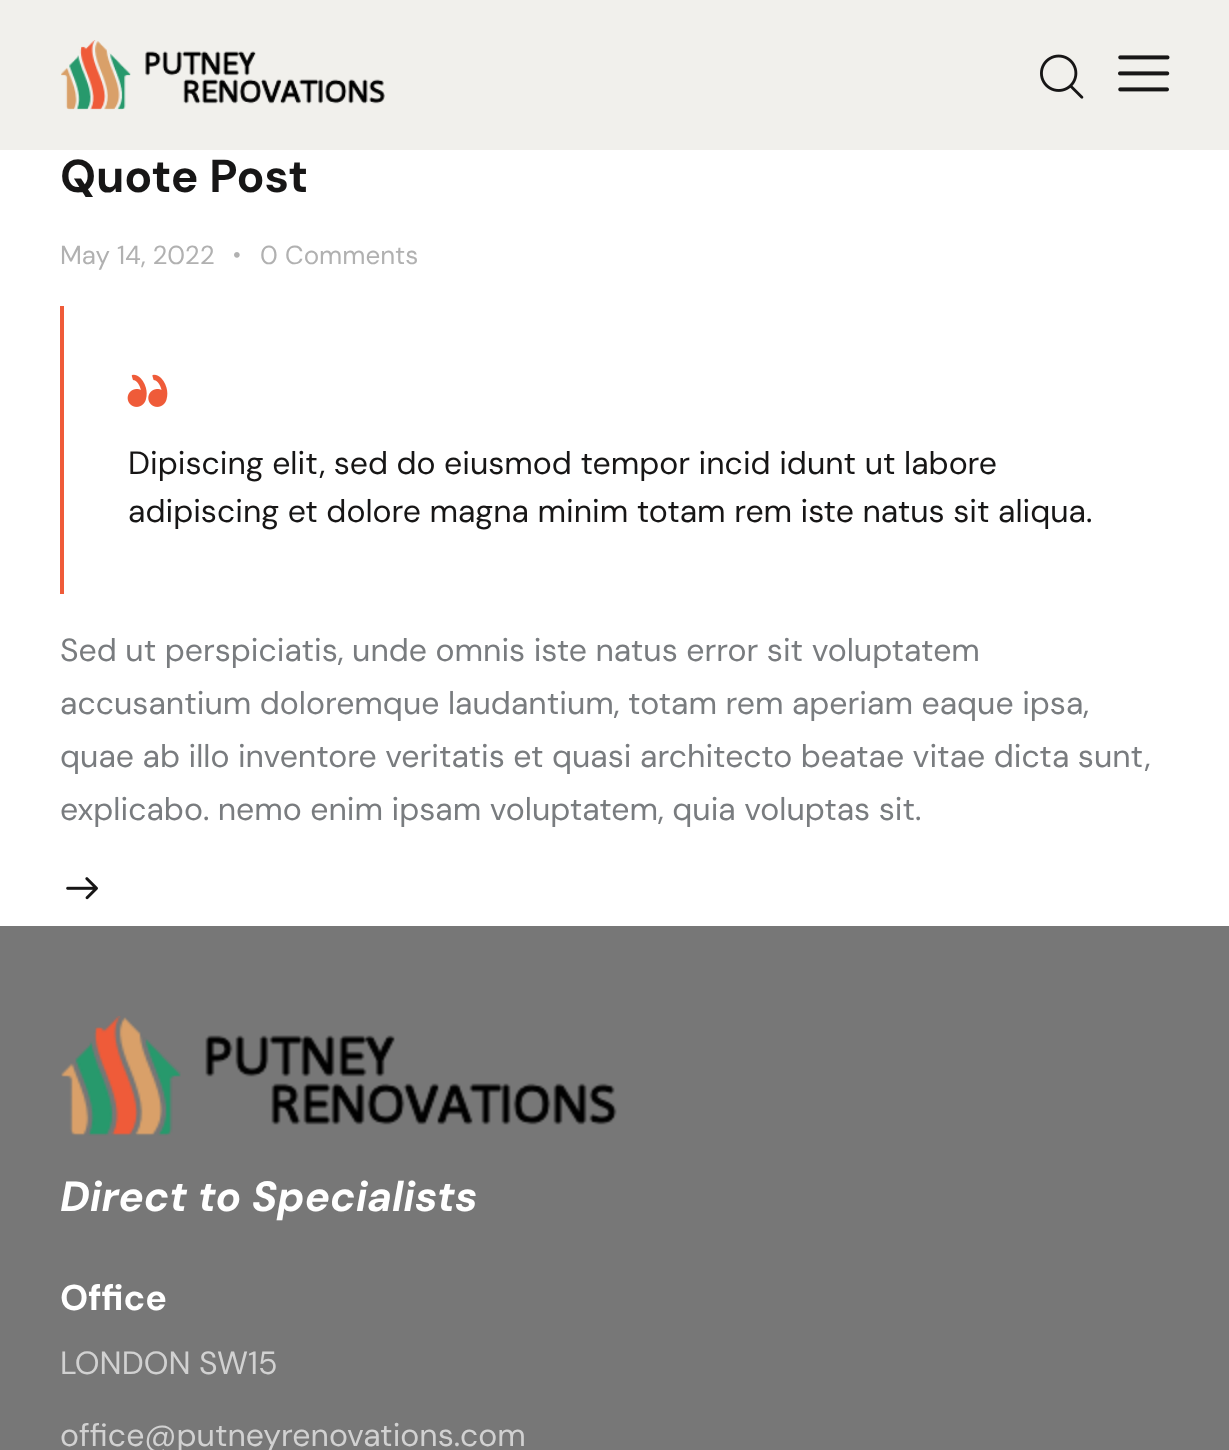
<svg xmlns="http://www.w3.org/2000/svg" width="1229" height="1450">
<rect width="100%" height="100%" fill="#f1f0ec"/>
<image x="61" y="40" width="324" height="70" href="media/1.png"/>
<image x="1040" y="54" width="44" height="45" href="media/2.png"/>
<image x="1118" y="55" width="52" height="37" href="media/3.png"/>
<rect y="150" width="1229" height="776" fill="#fff"/>
<text x="60" y="192" style="font-family:DM Sans;font-size:46px;font-weight:bold;fill:#171616">Quote Post</text>
<text x="60" y="264" style="font-family:DM Sans;font-size:26px;fill:#b1b1b1">May 14, 2022</text>
<image x="234" y="252" width="6" height="6" href="media/4.png"/>
<text x="260" y="264" style="font-family:DM Sans;font-size:26px;fill:#b1b1b1">0</text>
<text x="285" y="264" style="font-family:DM Sans;font-size:26px;fill:#b1b1b1">Comments</text>
<rect x="60" y="306" width="4" height="288" fill="#ef5b39"/>
<image x="127" y="374" width="41" height="33" href="media/5.png"/>
<text x="128" y="474" style="font-family:DM Sans;font-size:32px;fill:#171616">Dipiscing elit, sed do eiusmod tempor incid idunt ut labore</text>
<text x="128" y="522" style="font-family:DM Sans;font-size:32px;fill:#171616">adipiscing et dolore magna minim totam rem iste natus sit aliqua.</text>
<text x="60" y="661" style="font-family:DM Sans;font-size:32px;fill:#797c7f">Sed ut perspiciatis, unde omnis iste natus error sit voluptatem</text>
<text x="60" y="714" style="font-family:DM Sans;font-size:32px;fill:#797c7f">accusantium doloremque laudantium, totam rem aperiam eaque ipsa,</text>
<text x="60" y="767" style="font-family:DM Sans;font-size:32px;fill:#797c7f">quae ab illo inventore veritatis et quasi architecto beatae vitae dicta sunt,</text>
<text x="60" y="820" style="font-family:DM Sans;font-size:32px;fill:#797c7f">explicabo. nemo enim ipsam voluptatem, quia voluptas sit.</text>
<image x="66" y="877" width="32" height="23" href="media/6.png"/>
<rect y="926" width="1229" height="524" fill="#777"/>
<image x="61" y="1016" width="556" height="120" href="media/7.png"/>
<text x="60" y="1211" style="font-family:DM Sans;font-size:42px;font-weight:bold;font-style:italic;fill:#fff">Direct to Specialists</text>
<text x="60" y="1310" style="font-family:DM Sans;font-size:36px;font-weight:bold;fill:#fff">Office</text>
<text x="60" y="1374" style="font-family:DM Sans;font-size:32px;fill:#d1d1d1">LONDON SW15</text>
<text x="60" y="1446" style="font-family:DM Sans;font-size:32px;fill:#d1d1d1">office@putneyrenovations.com</text>
</svg>
